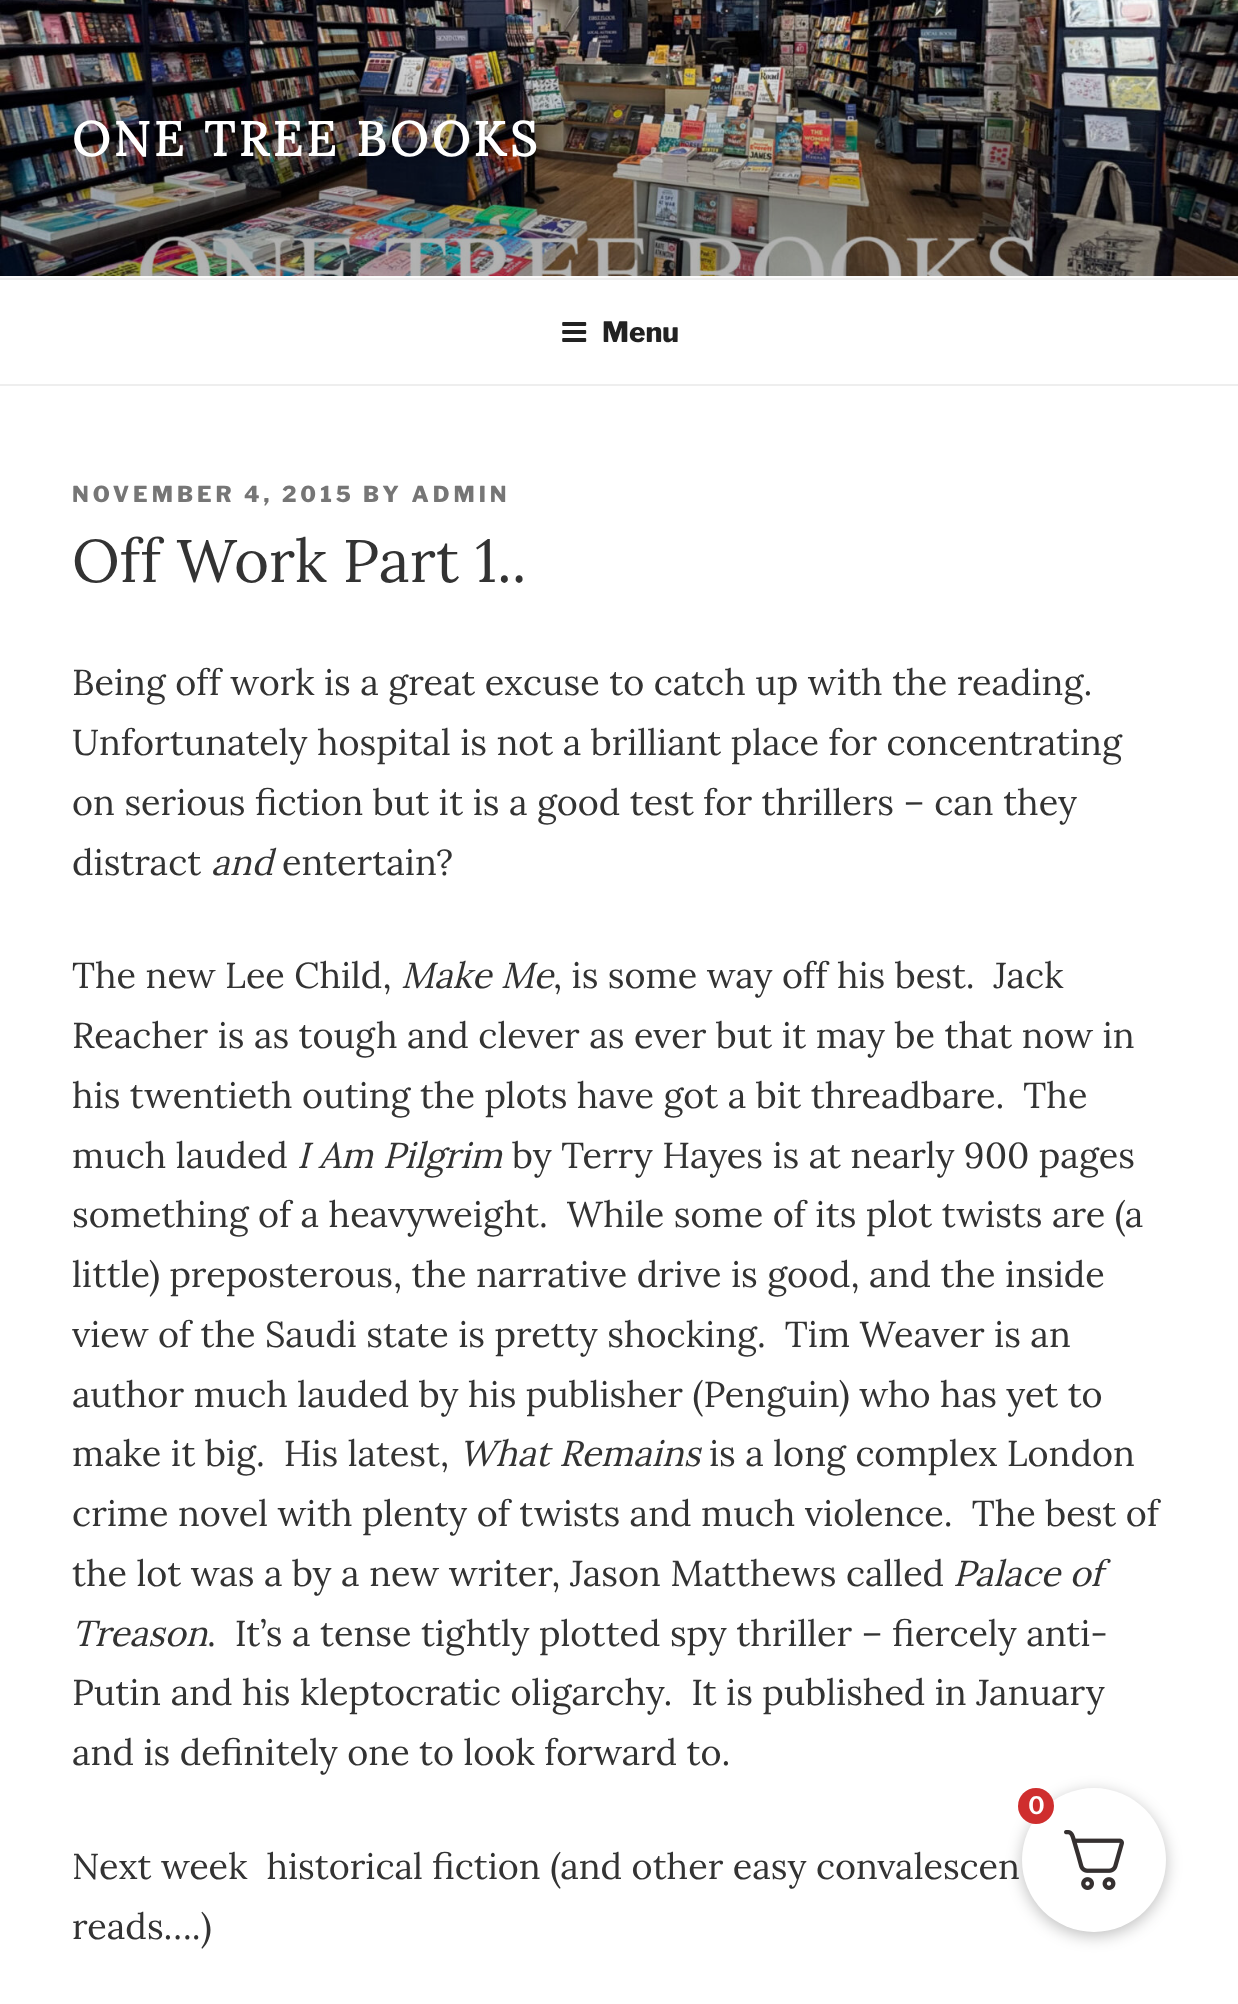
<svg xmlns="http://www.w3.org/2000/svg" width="1238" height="2004">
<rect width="100%" height="100%" fill="#fff"/>
<rect y="276" width="1238" height="2" fill="#fafafa"/>
<image x="0" y="0" width="1238" height="276" href="media/1.png"/>
<text x="72" y="156" style="font-family:Lora;font-size:48px;font-weight:bold;letter-spacing:3.8px;fill:#fff">ONE TREE BOOKS</text>
<rect y="278" width="1238" height="2" fill="#eee"/>
<rect y="384" width="1238" height="2" fill="#eee"/>
<image x="562" y="322" width="25" height="20" href="media/2.png"/>
<text x="602" y="342" style="font-family:Libre Franklin;font-size:28px;font-weight:100;fill:#222">Menu</text>
<text x="72" y="502" style="font-family:Libre Franklin;font-size:22px;font-weight:100;letter-spacing:4px;fill:#767676">NOVEMBER 4, 2015 BY ADMIN</text>
<text x="72" y="582" style="font-family:Lora;font-size:60px;fill:#333">Off Work Part 1..</text>
<text x="72" y="695" style="font-family:Lora;font-size:36px;fill:#333">Being off work is a great excuse to catch up with the reading.</text>
<text x="72" y="755" style="font-family:Lora;font-size:36px;fill:#333">Unfortunately hospital is not a brilliant place for concentrating</text>
<text x="72" y="815" style="font-family:Lora;font-size:36px;fill:#333">on serious fiction but it is a good test for thrillers – can they</text>
<text x="72" y="875" style="font-family:Lora;font-size:36px;fill:#333">distract</text>
<text x="211" y="875" style="font-family:Lora;font-size:36px;font-style:italic;fill:#333">and</text>
<text x="282" y="875" style="font-family:Lora;font-size:36px;fill:#333">entertain?</text>
<text x="72" y="988" style="font-family:Lora;font-size:36px;fill:#333">The new Lee Child,</text>
<text x="401" y="988" style="font-family:Lora;font-size:36px;font-style:italic;fill:#333">Make Me</text>
<text x="553" y="988" style="font-family:Lora;font-size:36px;fill:#333" xml:space="preserve">, is some way off his best.  Jack</text>
<text x="72" y="1048" style="font-family:Lora;font-size:36px;fill:#333">Reacher is as tough and clever as ever but it may be that now in</text>
<text x="72" y="1108" style="font-family:Lora;font-size:36px;fill:#333" xml:space="preserve">his twentieth outing the plots have got a bit threadbare.  The</text>
<text x="72" y="1168" style="font-family:Lora;font-size:36px;fill:#333">much lauded</text>
<text x="297" y="1168" style="font-family:Lora;font-size:36px;font-style:italic;fill:#333">I Am Pilgrim</text>
<text x="512" y="1168" style="font-family:Lora;font-size:36px;fill:#333">by Terry Hayes is at nearly 900 pages</text>
<text x="72" y="1227" style="font-family:Lora;font-size:36px;fill:#333" xml:space="preserve">something of a heavyweight.  While some of its plot twists are (a</text>
<text x="72" y="1287" style="font-family:Lora;font-size:36px;fill:#333">little) preposterous, the narrative drive is good, and the inside</text>
<text x="72" y="1347" style="font-family:Lora;font-size:36px;fill:#333" xml:space="preserve">view of the Saudi state is pretty shocking.  Tim Weaver is an</text>
<text x="72" y="1407" style="font-family:Lora;font-size:36px;fill:#333">author much lauded by his publisher (Penguin) who has yet to</text>
<text x="72" y="1466" style="font-family:Lora;font-size:36px;fill:#333" xml:space="preserve">make it big.  His latest,</text>
<text x="459" y="1466" style="font-family:Lora;font-size:36px;font-style:italic;fill:#333">What Remains</text>
<text x="709" y="1466" style="font-family:Lora;font-size:36px;fill:#333">is a long complex London</text>
<text x="72" y="1526" style="font-family:Lora;font-size:36px;fill:#333" xml:space="preserve">crime novel with plenty of twists and much violence.  The best of</text>
<text x="72" y="1586" style="font-family:Lora;font-size:36px;fill:#333">the lot was a by a new writer, Jason Matthews called</text>
<text x="953" y="1586" style="font-family:Lora;font-size:36px;font-style:italic;fill:#333">Palace of</text>
<text x="72" y="1646" style="font-family:Lora;font-size:36px;font-style:italic;fill:#333">Treason</text>
<text x="207" y="1646" style="font-family:Lora;font-size:36px;fill:#333" xml:space="preserve">.  It’s a tense tightly plotted spy thriller – fiercely anti-</text>
<text x="72" y="1705" style="font-family:Lora;font-size:36px;fill:#333" xml:space="preserve">Putin and his kleptocratic oligarchy.  It is published in January</text>
<text x="72" y="1765" style="font-family:Lora;font-size:36px;fill:#333">and is definitely one to look forward to.</text>
<text x="72" y="1879" style="font-family:Lora;font-size:36px;fill:#333" xml:space="preserve">Next week  historical fiction (and other easy convalescen</text>
<text x="72" y="1939" style="font-family:Lora;font-size:36px;fill:#333">reads….)</text>
<rect x="1022" y="1792" width="144" height="144" rx="72" fill="#00000040" filter="blur(8px)"/>
<circle cx="1094" cy="1860" r="72" fill="#fff"/>
<image x="1064" y="1830" width="60" height="60" href="media/3.png"/>
<circle cx="1036" cy="1806" r="18" fill="#cf2e2e"/>
<text x="1028" y="1814" style="font-family:'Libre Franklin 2';font-size:24px;font-weight:100;fill:#fff">0</text>
</svg>
